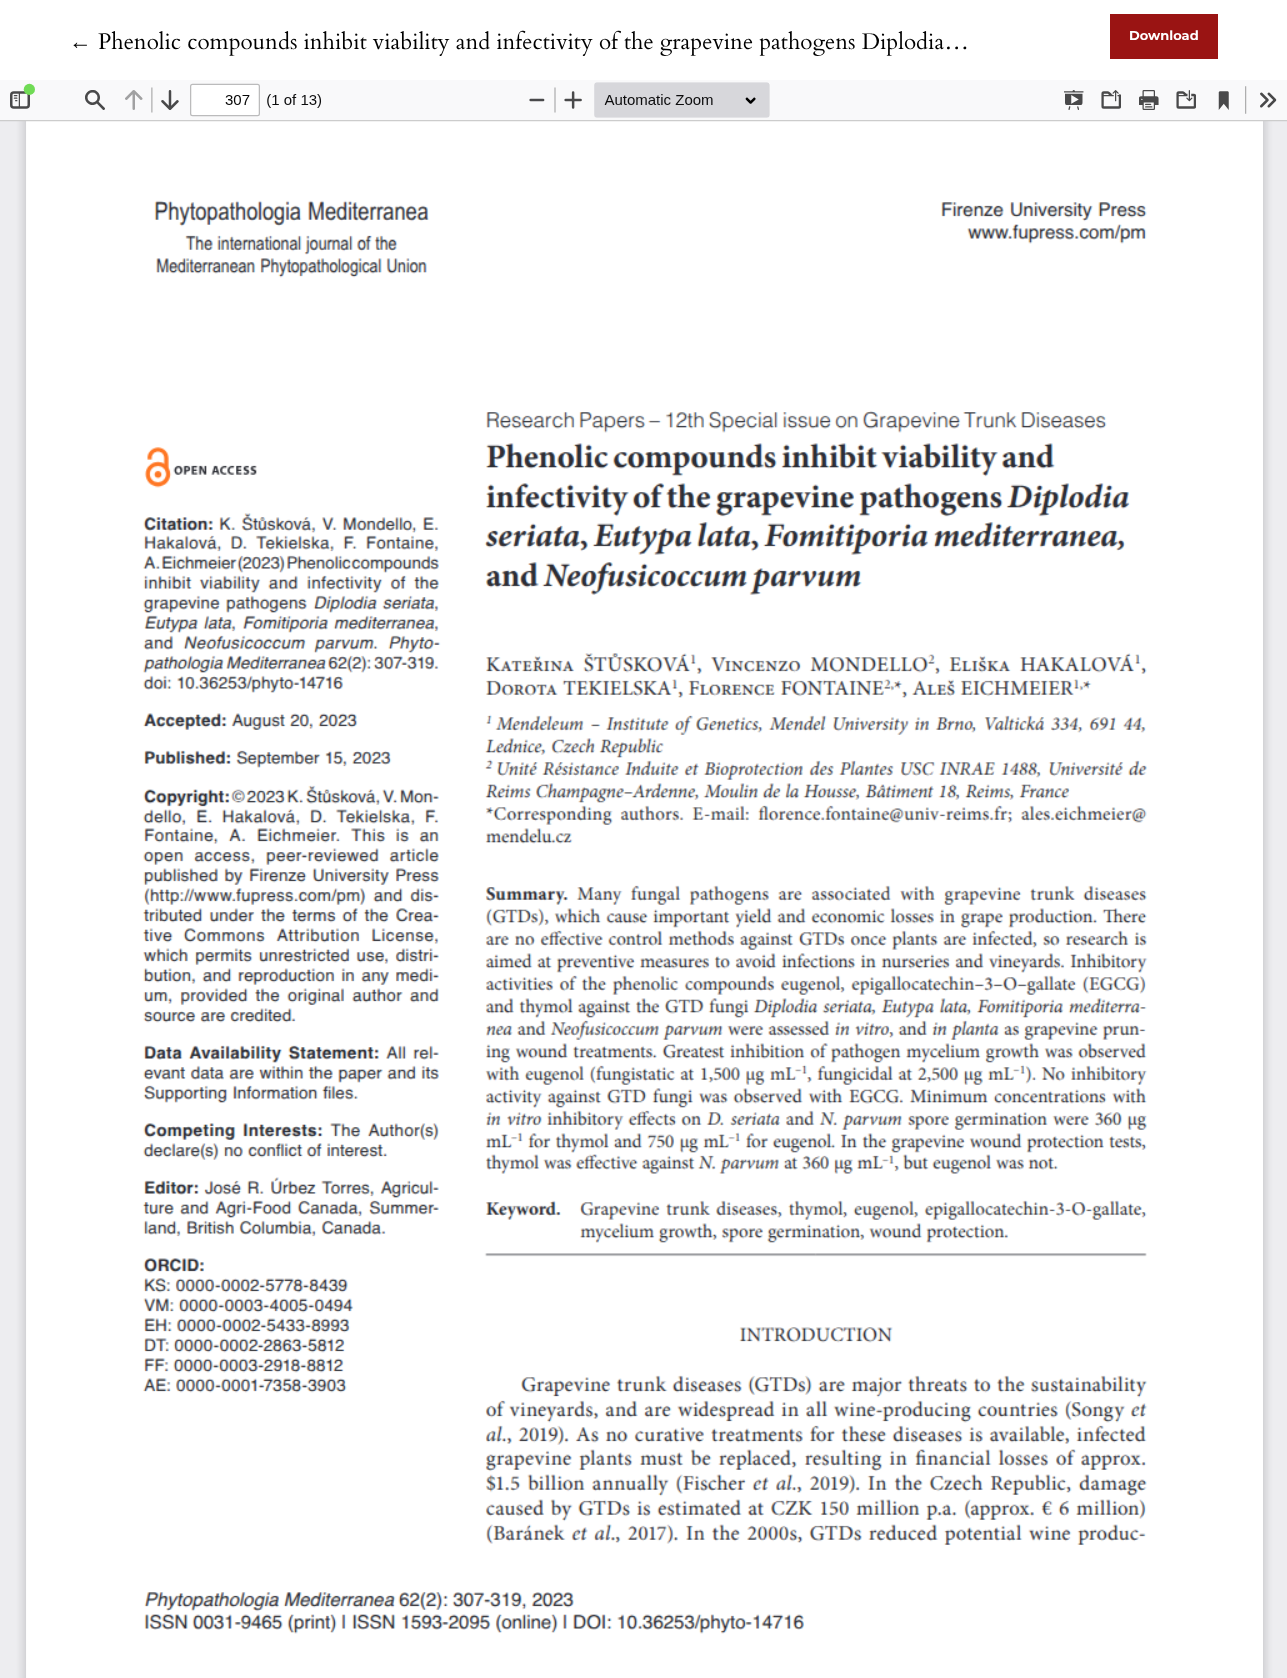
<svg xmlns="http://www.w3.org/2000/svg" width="1287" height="1678">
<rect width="100%" height="100%" fill="#fff"/>
<text x="69" y="49" style="font-family:Liberation Serif;font-size:22.5px;fill:#000">←</text>
<text x="98" y="49" style="font-family:Cardo;font-size:22.5px;fill:#000">Phenolic compounds inhibit viability and infectivity of the grapevine pathogens Diplodia…</text>
<rect x="1110" y="14" width="108" height="45" fill="#9a1413"/>
<text x="1129" y="40" style="font-family:Montserrat;font-size:13px;font-weight:bold;fill:#fff">Download</text>
<image x="0" y="80" width="1287" height="1598" href="media/1.png"/>
</svg>
